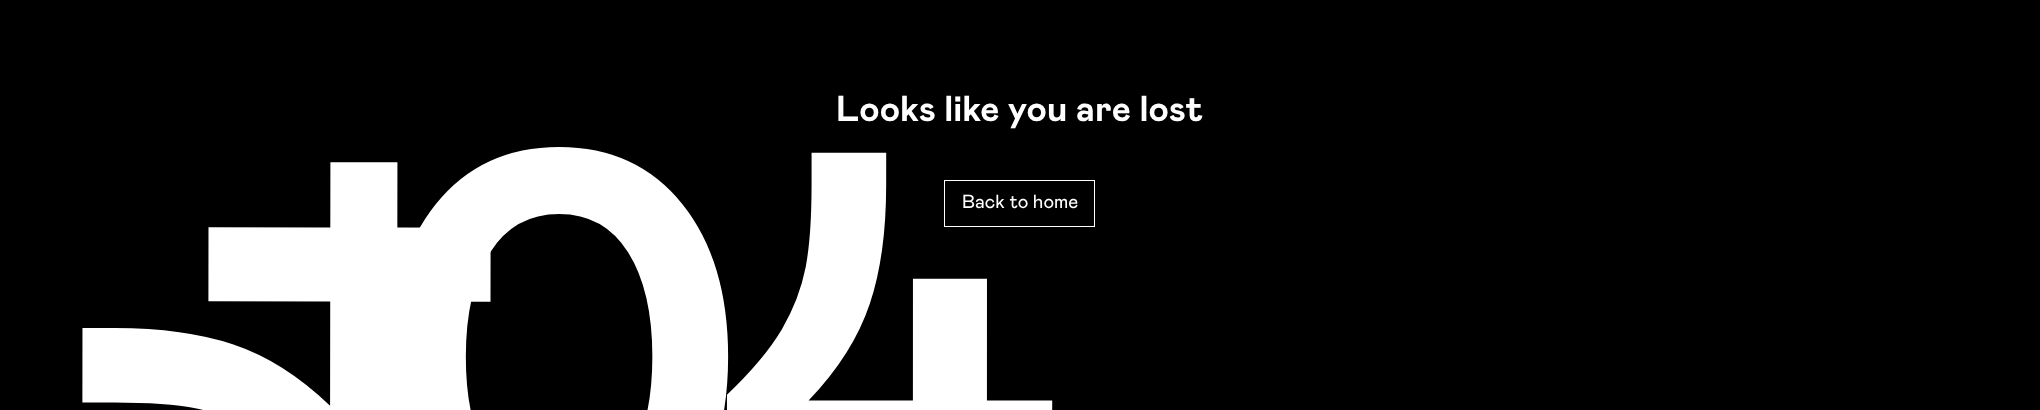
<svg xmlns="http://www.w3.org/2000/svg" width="2040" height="410">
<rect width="100%" height="100%" fill="#000"/>
<text x="836" y="121" style="font-family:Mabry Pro;font-size:36px;font-weight:bold;fill:#fff">Looks like you are lost</text>
<image x="82" y="147" width="971" height="263" href="media/1.png"/>
<rect x="944.5" y="180.5" width="150" height="46" fill="none" stroke="#fff"/>
<text x="962" y="208" style="font-family:Mabry Pro;font-size:19px;fill:#fff">Back to home</text>
</svg>
